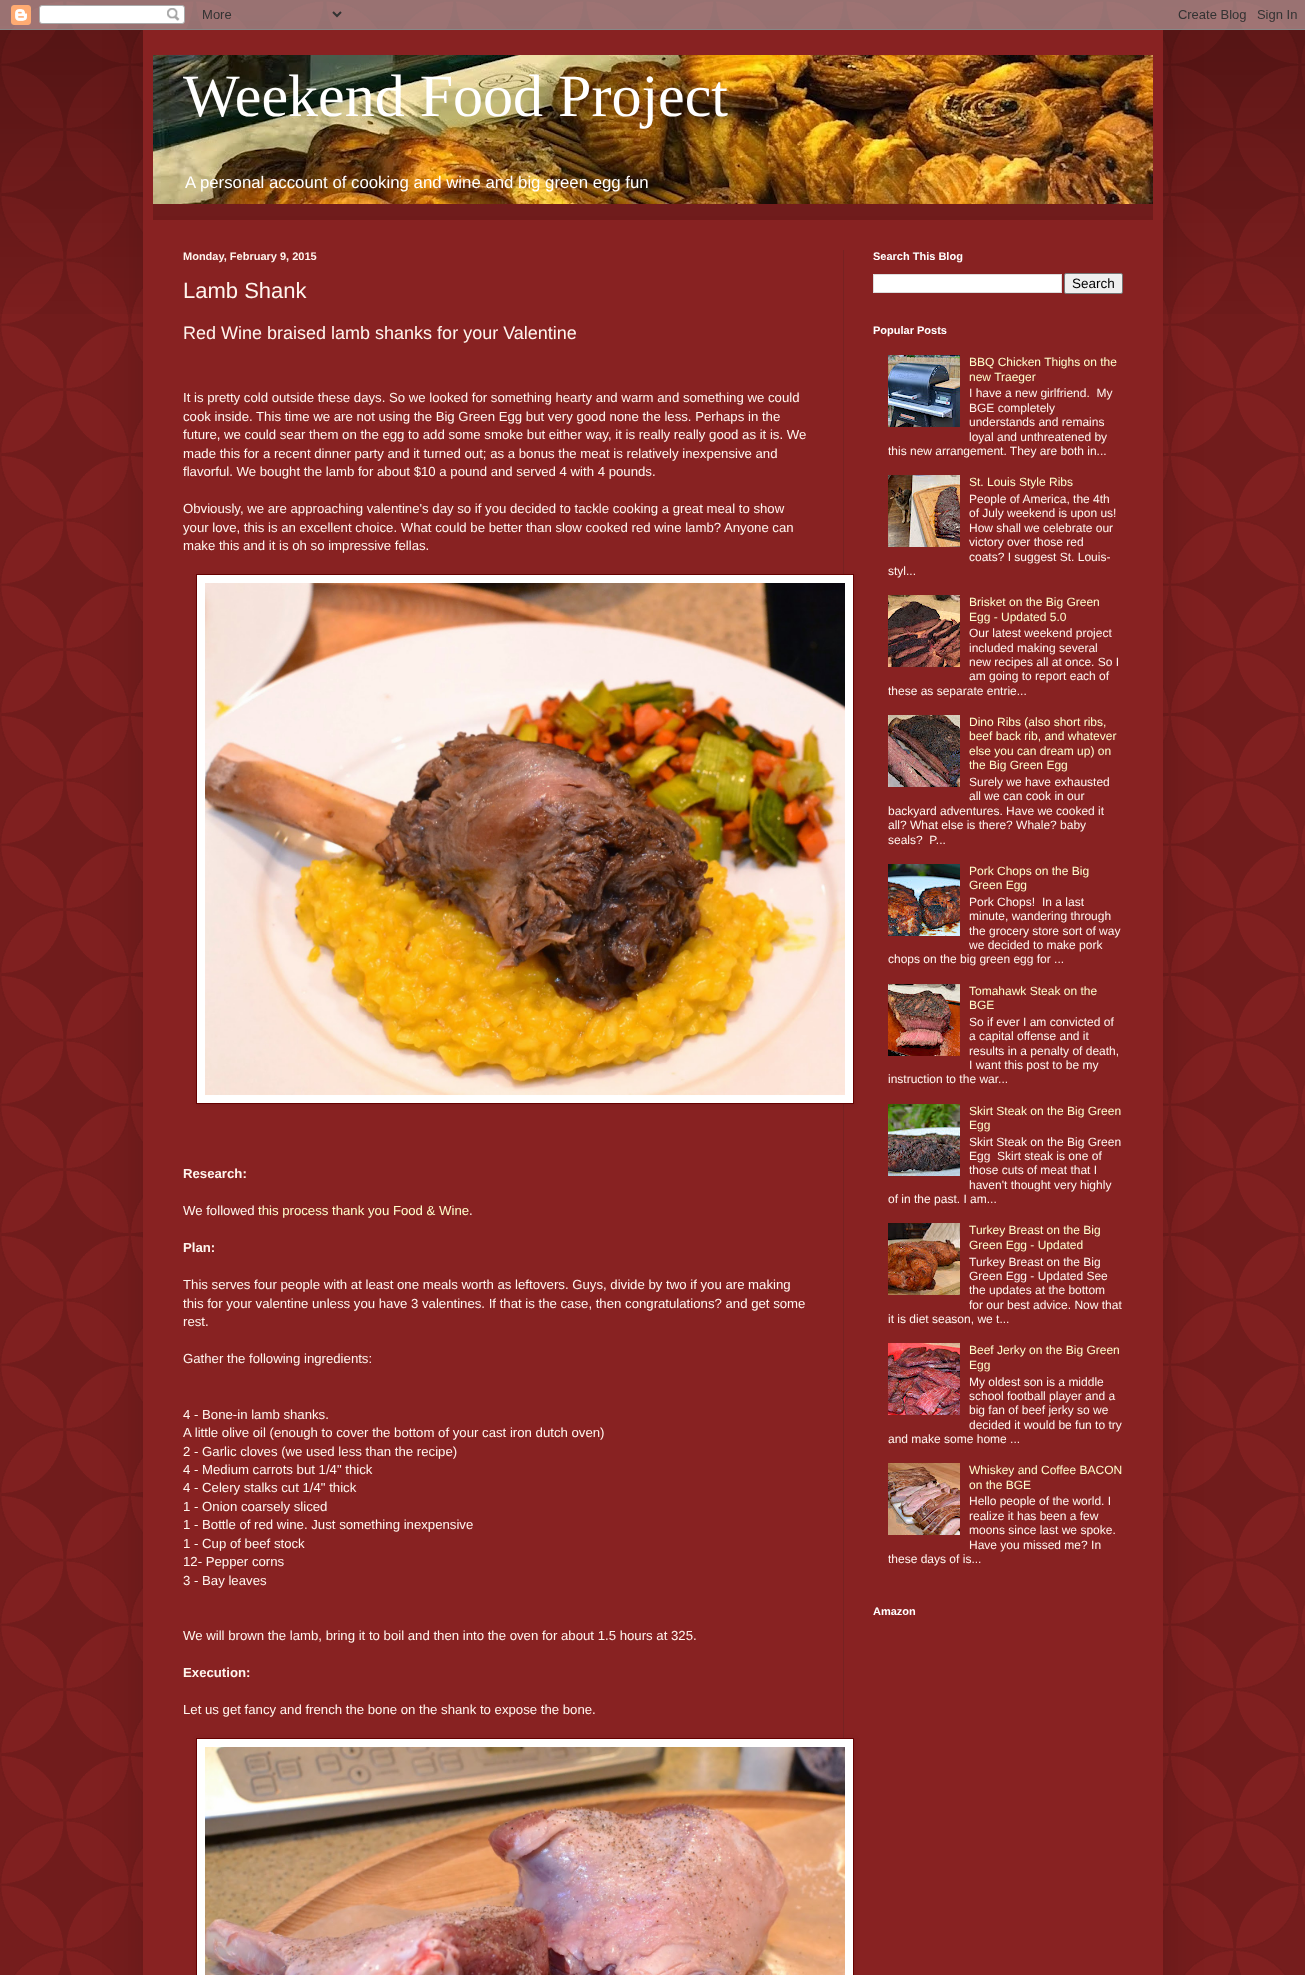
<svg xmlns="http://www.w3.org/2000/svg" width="1305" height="1975">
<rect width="100%" height="100%" fill="#822"/>
<image x="0" y="0" width="1305" height="1975" href="media/1.png"/>
<image x="0" y="0" width="1305" height="314" href="media/2.png"/>
<rect x="143" y="30" width="1020" height="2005" fill="#00000026" filter="blur(20px)"/>
<image x="0" y="0" width="1305" height="30" href="media/3.png"/>
<rect x="143" y="30" width="1020" height="1945" fill="#822"/>
<image x="153" y="204" width="1000" height="16" href="media/4.png"/>
<image x="153" y="55" width="1000" height="149" href="media/5.png"/>
<text x="183" y="116" style="font-family:Liberation Serif;font-size:60px;fill:#fff">Weekend Food Project</text>
<text x="185" y="188" style="font-family:Liberation Sans;font-size:16.8px;fill:#fff">A personal account of cooking and wine and big green egg fun</text>
<rect x="843" y="250" width="1" height="1488" fill="#722"/>
<text x="183" y="260" style="font-family:Liberation Sans;font-size:11px;font-weight:bold;fill:#fff5ee">Monday, February 9, 2015</text>
<text x="183" y="298" style="font-family:Liberation Sans;font-size:22px;fill:#fff5ee">Lamb Shank</text>
<text x="183" y="339" style="font-family:Liberation Sans;font-size:18px;fill:#fff5ee">Red Wine braised lamb shanks for your Valentine</text>
<text x="183" y="402" style="font-family:Liberation Sans;font-size:13.2px;fill:#fff5ee">It is pretty cold outside these days. So we looked for something hearty and warm and something we could</text>
<text x="183" y="421" style="font-family:Liberation Sans;font-size:13.2px;fill:#fff5ee">cook inside. This time we are not using the Big Green Egg but very good none the less. Perhaps in the</text>
<text x="183" y="439" style="font-family:Liberation Sans;font-size:13.2px;fill:#fff5ee">future, we could sear them on the egg to add some smoke but either way, it is really really good as it is. We</text>
<text x="183" y="458" style="font-family:Liberation Sans;font-size:13.2px;fill:#fff5ee">made this for a recent dinner party and it turned out; as a bonus the meat is relatively inexpensive and</text>
<text x="183" y="476" style="font-family:Liberation Sans;font-size:13.2px;fill:#fff5ee">flavorful. We bought the lamb for about $10 a pound and served 4 with 4 pounds.</text>
<text x="183" y="513" style="font-family:Liberation Sans;font-size:13.2px;fill:#fff5ee">Obviously, we are approaching valentine's day so if you decided to tackle cooking a great meal to show</text>
<text x="183" y="532" style="font-family:Liberation Sans;font-size:13.2px;fill:#fff5ee">your love, this is an excellent choice. What could be better than slow cooked red wine lamb? Anyone can</text>
<text x="183" y="550" style="font-family:Liberation Sans;font-size:13.2px;fill:#fff5ee">make this and it is oh so impressive fellas.</text>
<rect x="197" y="575" width="658" height="530" fill="#0000001a" filter="blur(2.5px)"/>
<rect x="196.5" y="574.5" width="657" height="529" fill="#fff" stroke="#600"/>
<image x="205" y="583" width="640" height="512" href="media/6.png"/>
<text x="183" y="1178" style="font-family:Liberation Sans;font-size:13.2px;font-weight:bold;fill:#fff5ee">Research:</text>
<text x="183" y="1215" style="font-family:Liberation Sans;font-size:13.2px;fill:#fff5ee">We followed</text>
<text x="258" y="1215" style="font-family:Liberation Sans;font-size:13.2px;fill:#ffc">this process thank you Food &amp; Wine</text>
<text x="469" y="1215" style="font-family:Liberation Sans;font-size:13.2px;fill:#fff5ee">.</text>
<text x="183" y="1252" style="font-family:Liberation Sans;font-size:13.2px;font-weight:bold;fill:#fff5ee">Plan:</text>
<text x="183" y="1289" style="font-family:Liberation Sans;font-size:13.2px;fill:#fff5ee">This serves four people with at least one meals worth as leftovers. Guys, divide by two if you are making</text>
<text x="183" y="1308" style="font-family:Liberation Sans;font-size:13.2px;fill:#fff5ee">this for your valentine unless you have 3 valentines. If that is the case, then congratulations? and get some</text>
<text x="183" y="1326" style="font-family:Liberation Sans;font-size:13.2px;fill:#fff5ee">rest.</text>
<text x="183" y="1363" style="font-family:Liberation Sans;font-size:13.2px;fill:#fff5ee">Gather the following ingredients:</text>
<text x="183" y="1419" style="font-family:Liberation Sans;font-size:13.2px;fill:#fff5ee">4 - Bone-in lamb shanks.</text>
<text x="183" y="1437" style="font-family:Liberation Sans;font-size:13.2px;fill:#fff5ee">A little olive oil (enough to cover the bottom of your cast iron dutch oven)</text>
<text x="183" y="1456" style="font-family:Liberation Sans;font-size:13.2px;fill:#fff5ee">2 - Garlic cloves (we used less than the recipe)</text>
<text x="183" y="1474" style="font-family:Liberation Sans;font-size:13.2px;fill:#fff5ee">4 - Medium carrots but 1/4" thick</text>
<text x="183" y="1492" style="font-family:Liberation Sans;font-size:13.2px;fill:#fff5ee">4 - Celery stalks cut 1/4" thick</text>
<text x="183" y="1511" style="font-family:Liberation Sans;font-size:13.2px;fill:#fff5ee">1 - Onion coarsely sliced</text>
<text x="183" y="1529" style="font-family:Liberation Sans;font-size:13.2px;fill:#fff5ee">1 - Bottle of red wine. Just something inexpensive</text>
<text x="183" y="1548" style="font-family:Liberation Sans;font-size:13.2px;fill:#fff5ee">1 - Cup of beef stock</text>
<text x="183" y="1566" style="font-family:Liberation Sans;font-size:13.2px;fill:#fff5ee">12- Pepper corns</text>
<text x="183" y="1585" style="font-family:Liberation Sans;font-size:13.2px;fill:#fff5ee">3 - Bay leaves</text>
<text x="183" y="1640" style="font-family:Liberation Sans;font-size:13.2px;fill:#fff5ee">We will brown the lamb, bring it to boil and then into the oven for about 1.5 hours at 325.</text>
<text x="183" y="1677" style="font-family:Liberation Sans;font-size:13.2px;font-weight:bold;fill:#fff5ee">Execution:</text>
<text x="183" y="1714" style="font-family:Liberation Sans;font-size:13.2px;fill:#fff5ee">Let us get fancy and french the bone on the shank to expose the bone.</text>
<rect x="197" y="1739" width="658" height="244" fill="#0000001a" filter="blur(2.5px)"/>
<rect x="196.5" y="1738.5" width="657" height="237" fill="#fff" stroke="#600"/>
<image x="205" y="1747" width="640" height="228" href="media/7.png"/>
<text x="873" y="260" style="font-family:Liberation Sans;font-size:11px;font-weight:bold;fill:#fff">Search This Blog</text>
<rect x="873.5" y="274.5" width="188" height="18" fill="#fff" stroke="#ddd"/>
<rect x="1064.5" y="273.5" width="58" height="20" rx="1.5" fill="#efefef" stroke="#767676"/>
<text x="1072" y="288" style="font-family:Liberation Sans;font-size:13.5px;fill:#000">Search</text>
<text x="873" y="334" style="font-family:Liberation Sans;font-size:11px;font-weight:bold;fill:#fff">Popular Posts</text>
<image x="888" y="355" width="72" height="72" href="media/8.png"/>
<text x="969" y="366" style="font-family:Liberation Sans;font-size:12px;fill:#ffc">BBQ Chicken Thighs on the</text>
<text x="969" y="381" style="font-family:Liberation Sans;font-size:12px;fill:#ffc">new Traeger</text>
<text x="969" y="397" style="font-family:Liberation Sans;font-size:12px;fill:#fff5ee" xml:space="preserve">I have a new girlfriend.  My</text>
<text x="969" y="412" style="font-family:Liberation Sans;font-size:12px;fill:#fff5ee">BGE completely</text>
<text x="969" y="426" style="font-family:Liberation Sans;font-size:12px;fill:#fff5ee">understands and remains</text>
<text x="969" y="441" style="font-family:Liberation Sans;font-size:12px;fill:#fff5ee">loyal and unthreatened by</text>
<text x="888" y="455" style="font-family:Liberation Sans;font-size:12px;fill:#fff5ee">this new arrangement. They are both in...</text>
<image x="888" y="475" width="72" height="72" href="media/9.png"/>
<text x="969" y="486" style="font-family:Liberation Sans;font-size:12px;fill:#ffc">St. Louis Style Ribs</text>
<text x="969" y="503" style="font-family:Liberation Sans;font-size:12px;fill:#fff5ee">People of America, the 4th</text>
<text x="969" y="517" style="font-family:Liberation Sans;font-size:12px;fill:#fff5ee">of July weekend is upon us!</text>
<text x="969" y="532" style="font-family:Liberation Sans;font-size:12px;fill:#fff5ee">How shall we celebrate our</text>
<text x="969" y="546" style="font-family:Liberation Sans;font-size:12px;fill:#fff5ee">victory over those red</text>
<text x="969" y="561" style="font-family:Liberation Sans;font-size:12px;fill:#fff5ee">coats? I suggest St. Louis-</text>
<text x="888" y="575" style="font-family:Liberation Sans;font-size:12px;fill:#fff5ee">styl...</text>
<image x="888" y="595" width="72" height="72" href="media/10.png"/>
<text x="969" y="606" style="font-family:Liberation Sans;font-size:12px;fill:#ffc">Brisket on the Big Green</text>
<text x="969" y="621" style="font-family:Liberation Sans;font-size:12px;fill:#ffc">Egg - Updated 5.0</text>
<text x="969" y="637" style="font-family:Liberation Sans;font-size:12px;fill:#fff5ee">Our latest weekend project</text>
<text x="969" y="652" style="font-family:Liberation Sans;font-size:12px;fill:#fff5ee">included making several</text>
<text x="969" y="666" style="font-family:Liberation Sans;font-size:12px;fill:#fff5ee">new recipes all at once. So I</text>
<text x="969" y="680" style="font-family:Liberation Sans;font-size:12px;fill:#fff5ee">am going to report each of</text>
<text x="888" y="695" style="font-family:Liberation Sans;font-size:12px;fill:#fff5ee">these as separate entrie...</text>
<image x="888" y="715" width="72" height="72" href="media/11.png"/>
<text x="969" y="726" style="font-family:Liberation Sans;font-size:12px;fill:#ffc">Dino Ribs (also short ribs,</text>
<text x="969" y="740" style="font-family:Liberation Sans;font-size:12px;fill:#ffc">beef back rib, and whatever</text>
<text x="969" y="755" style="font-family:Liberation Sans;font-size:12px;fill:#ffc">else you can dream up) on</text>
<text x="969" y="769" style="font-family:Liberation Sans;font-size:12px;fill:#ffc">the Big Green Egg</text>
<text x="969" y="786" style="font-family:Liberation Sans;font-size:12px;fill:#fff5ee">Surely we have exhausted</text>
<text x="969" y="800" style="font-family:Liberation Sans;font-size:12px;fill:#fff5ee">all we can cook in our</text>
<text x="888" y="815" style="font-family:Liberation Sans;font-size:12px;fill:#fff5ee">backyard adventures. Have we cooked it</text>
<text x="888" y="829" style="font-family:Liberation Sans;font-size:12px;fill:#fff5ee">all? What else is there? Whale? baby</text>
<text x="888" y="844" style="font-family:Liberation Sans;font-size:12px;fill:#fff5ee" xml:space="preserve">seals?  P...</text>
<image x="888" y="864" width="72" height="72" href="media/12.png"/>
<text x="969" y="875" style="font-family:Liberation Sans;font-size:12px;fill:#ffc">Pork Chops on the Big</text>
<text x="969" y="889" style="font-family:Liberation Sans;font-size:12px;fill:#ffc">Green Egg</text>
<text x="969" y="906" style="font-family:Liberation Sans;font-size:12px;fill:#fff5ee">Pork Chops!</text>
<text x="1042" y="906" style="font-family:Liberation Sans;font-size:12px;fill:#fff5ee">In a last</text>
<text x="969" y="920" style="font-family:Liberation Sans;font-size:12px;fill:#fff5ee">minute, wandering through</text>
<text x="969" y="935" style="font-family:Liberation Sans;font-size:12px;fill:#fff5ee">the grocery store sort of way</text>
<text x="969" y="949" style="font-family:Liberation Sans;font-size:12px;fill:#fff5ee">we decided to make pork</text>
<text x="888" y="963" style="font-family:Liberation Sans;font-size:12px;fill:#fff5ee">chops on the big green egg for ...</text>
<image x="888" y="984" width="72" height="72" href="media/13.png"/>
<text x="969" y="995" style="font-family:Liberation Sans;font-size:12px;fill:#ffc">Tomahawk Steak on the</text>
<text x="969" y="1009" style="font-family:Liberation Sans;font-size:12px;fill:#ffc">BGE</text>
<text x="969" y="1026" style="font-family:Liberation Sans;font-size:12px;fill:#fff5ee">So if ever I am convicted of</text>
<text x="969" y="1040" style="font-family:Liberation Sans;font-size:12px;fill:#fff5ee">a capital offense and it</text>
<text x="969" y="1055" style="font-family:Liberation Sans;font-size:12px;fill:#fff5ee">results in a penalty of death,</text>
<text x="969" y="1069" style="font-family:Liberation Sans;font-size:12px;fill:#fff5ee">I want this post to be my</text>
<text x="888" y="1083" style="font-family:Liberation Sans;font-size:12px;fill:#fff5ee">instruction to the war...</text>
<image x="888" y="1104" width="72" height="72" href="media/14.png"/>
<text x="969" y="1115" style="font-family:Liberation Sans;font-size:12px;fill:#ffc">Skirt Steak on the Big Green</text>
<text x="969" y="1129" style="font-family:Liberation Sans;font-size:12px;fill:#ffc">Egg</text>
<text x="969" y="1146" style="font-family:Liberation Sans;font-size:12px;fill:#fff5ee">Skirt Steak on the Big Green</text>
<text x="969" y="1160" style="font-family:Liberation Sans;font-size:12px;fill:#fff5ee">Egg</text>
<text x="997" y="1160" style="font-family:Liberation Sans;font-size:12px;fill:#fff5ee">Skirt steak is one of</text>
<text x="969" y="1174" style="font-family:Liberation Sans;font-size:12px;fill:#fff5ee">those cuts of meat that I</text>
<text x="969" y="1189" style="font-family:Liberation Sans;font-size:12px;fill:#fff5ee">haven't thought very highly</text>
<text x="888" y="1203" style="font-family:Liberation Sans;font-size:12px;fill:#fff5ee">of in the past. I am...</text>
<image x="888" y="1223" width="72" height="72" href="media/15.png"/>
<text x="969" y="1234" style="font-family:Liberation Sans;font-size:12px;fill:#ffc">Turkey Breast on the Big</text>
<text x="969" y="1249" style="font-family:Liberation Sans;font-size:12px;fill:#ffc">Green Egg - Updated</text>
<text x="969" y="1266" style="font-family:Liberation Sans;font-size:12px;fill:#fff5ee">Turkey Breast on the Big</text>
<text x="969" y="1280" style="font-family:Liberation Sans;font-size:12px;fill:#fff5ee">Green Egg - Updated See</text>
<text x="969" y="1294" style="font-family:Liberation Sans;font-size:12px;fill:#fff5ee">the updates at the bottom</text>
<text x="969" y="1309" style="font-family:Liberation Sans;font-size:12px;fill:#fff5ee">for our best advice. Now that</text>
<text x="888" y="1323" style="font-family:Liberation Sans;font-size:12px;fill:#fff5ee">it is diet season, we t...</text>
<image x="888" y="1343" width="72" height="72" href="media/16.png"/>
<text x="969" y="1354" style="font-family:Liberation Sans;font-size:12px;fill:#ffc">Beef Jerky on the Big Green</text>
<text x="969" y="1369" style="font-family:Liberation Sans;font-size:12px;fill:#ffc">Egg</text>
<text x="969" y="1386" style="font-family:Liberation Sans;font-size:12px;fill:#fff5ee">My oldest son is a middle</text>
<text x="969" y="1400" style="font-family:Liberation Sans;font-size:12px;fill:#fff5ee">school football player and a</text>
<text x="969" y="1414" style="font-family:Liberation Sans;font-size:12px;fill:#fff5ee">big fan of beef jerky so we</text>
<text x="969" y="1429" style="font-family:Liberation Sans;font-size:12px;fill:#fff5ee">decided it would be fun to try</text>
<text x="888" y="1443" style="font-family:Liberation Sans;font-size:12px;fill:#fff5ee">and make some home ...</text>
<image x="888" y="1463" width="72" height="72" href="media/17.png"/>
<text x="969" y="1474" style="font-family:Liberation Sans;font-size:12px;fill:#ffc">Whiskey and Coffee BACON</text>
<text x="969" y="1489" style="font-family:Liberation Sans;font-size:12px;fill:#ffc">on the BGE</text>
<text x="969" y="1505" style="font-family:Liberation Sans;font-size:12px;fill:#fff5ee">Hello people of the world. I</text>
<text x="969" y="1520" style="font-family:Liberation Sans;font-size:12px;fill:#fff5ee">realize it has been a few</text>
<text x="969" y="1534" style="font-family:Liberation Sans;font-size:12px;fill:#fff5ee">moons since last we spoke.</text>
<text x="969" y="1549" style="font-family:Liberation Sans;font-size:12px;fill:#fff5ee">Have you missed me? In</text>
<text x="888" y="1563" style="font-family:Liberation Sans;font-size:12px;fill:#fff5ee">these days of is...</text>
<text x="873" y="1615" style="font-family:Liberation Sans;font-size:11px;font-weight:bold;fill:#fff">Amazon</text>
</svg>
